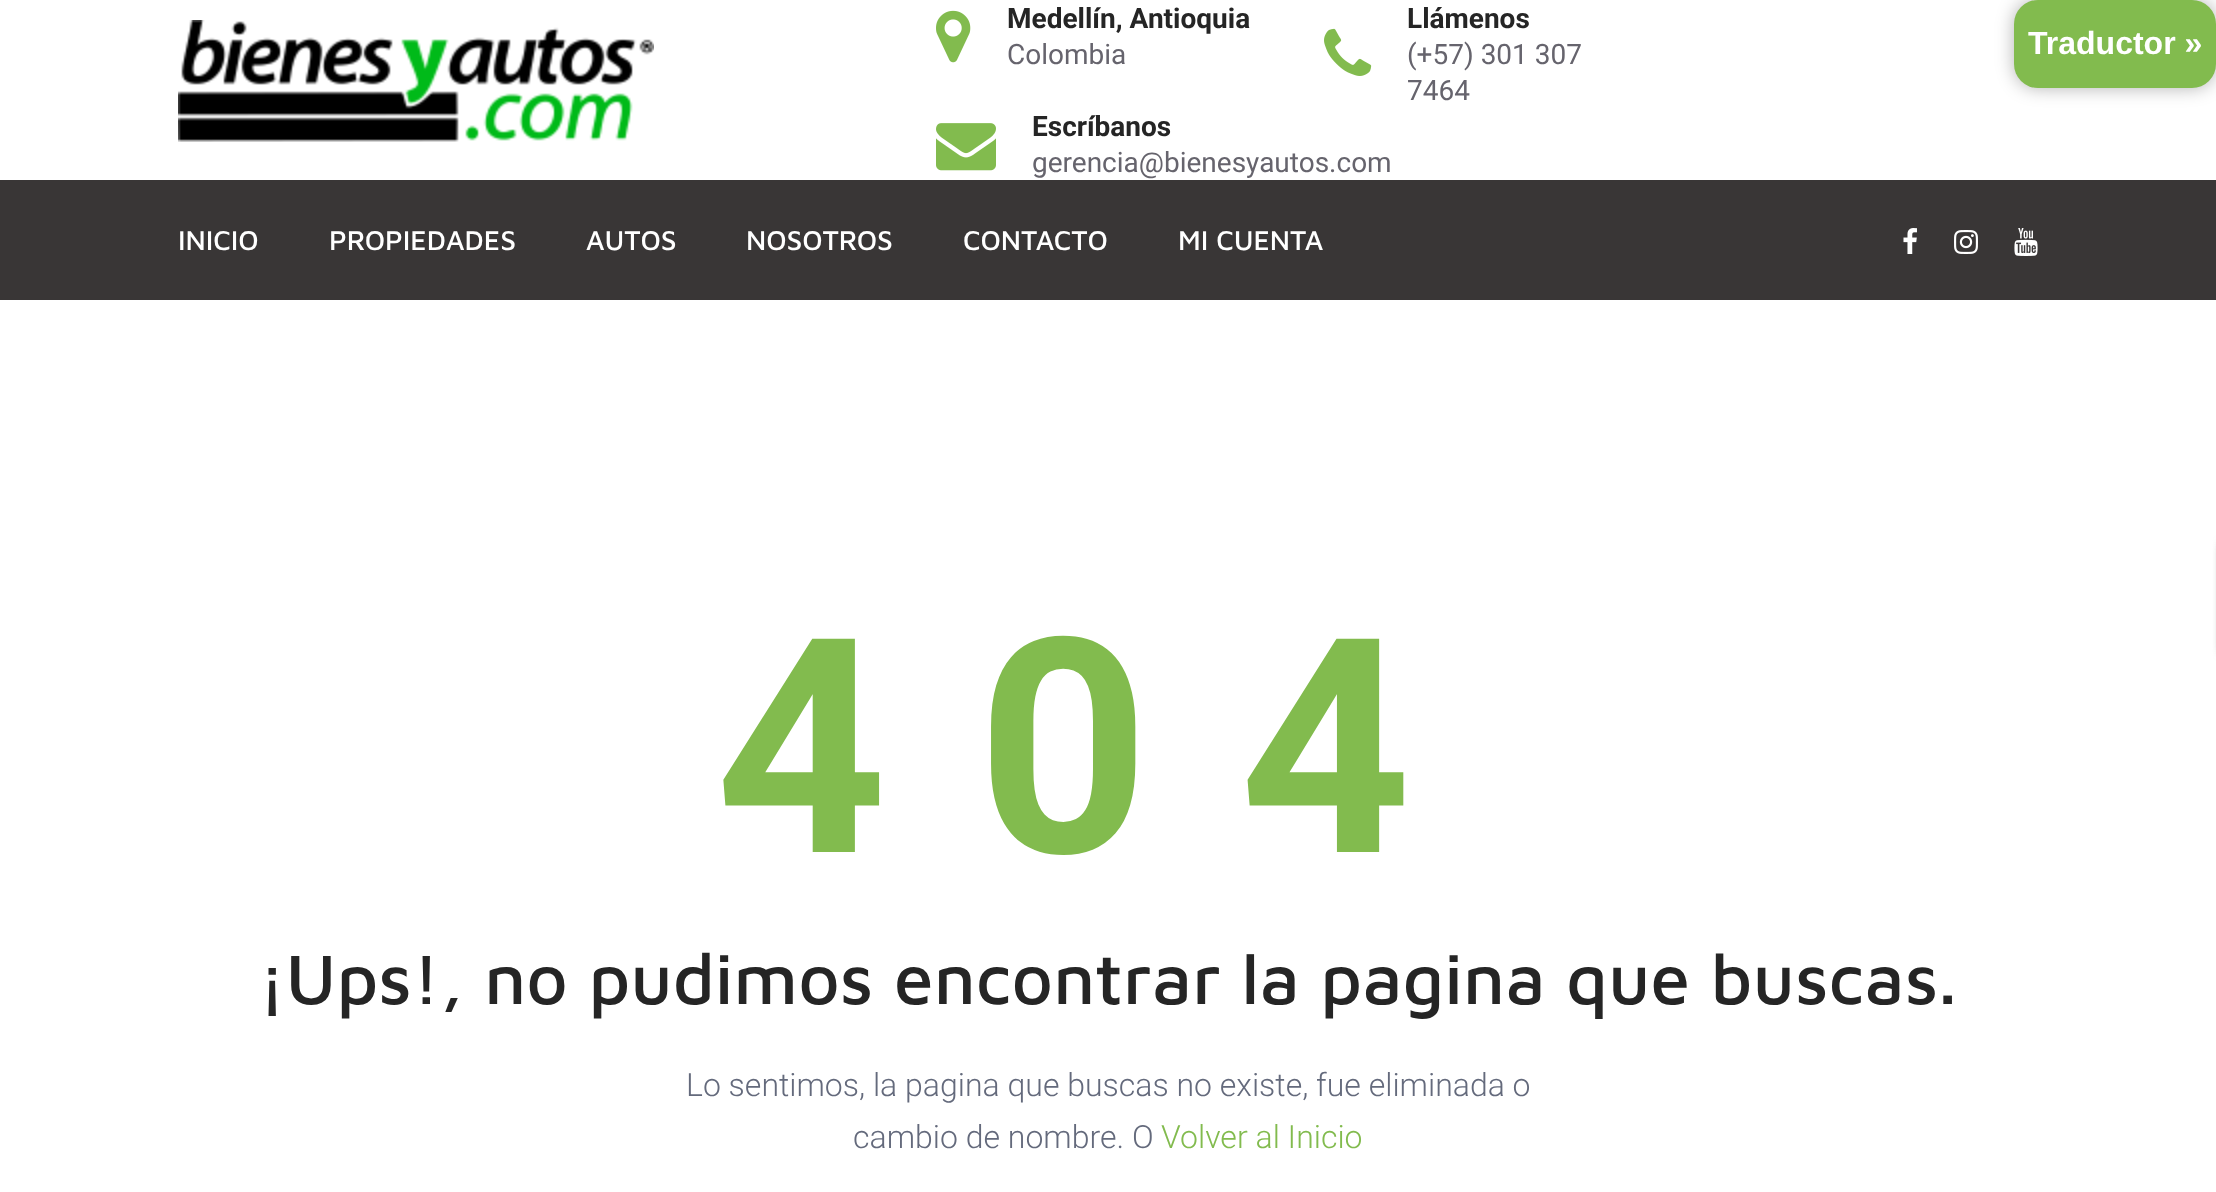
<svg xmlns="http://www.w3.org/2000/svg" width="2216" height="1192">
<rect width="100%" height="100%" fill="#fff"/>
<image x="178" y="20" width="476" height="122" href="media/1.png"/>
<image x="936" y="10" width="35" height="53" href="media/2.png"/>
<text x="1007" y="28" style="font-family:Roboto;font-size:28px;font-weight:bold;fill:#252525">Medellín, Antioquia</text>
<text x="1007" y="64" style="font-family:Roboto;font-size:28px;fill:#66646d">Colombia</text>
<image x="1324" y="28" width="48" height="48" href="media/3.png"/>
<text x="1407" y="28" style="font-family:Roboto;font-size:28px;font-weight:bold;fill:#252525">Llámenos</text>
<text x="1407" y="64" style="font-family:Roboto;font-size:28px;fill:#66646d">(+57) 301 307</text>
<text x="1407" y="100" style="font-family:Roboto;font-size:28px;fill:#66646d">7464</text>
<image x="936" y="123" width="60" height="48" href="media/4.png"/>
<text x="1032" y="136" style="font-family:Roboto;font-size:28px;font-weight:bold;fill:#252525">Escríbanos</text>
<text x="1032" y="172" style="font-family:Roboto;font-size:28px;fill:#66646d">gerencia@bienesyautos.com</text>
<rect y="180" width="2216" height="120" fill="#393636"/>
<text x="178" y="250" style="font-family:Maven Pro;font-size:28px;font-weight:500;fill:#fff">INICIO</text>
<text x="329" y="250" style="font-family:Maven Pro;font-size:28px;font-weight:500;fill:#fff">PROPIEDADES</text>
<text x="586" y="250" style="font-family:Maven Pro;font-size:28px;font-weight:500;fill:#fff">AUTOS</text>
<text x="746" y="250" style="font-family:Maven Pro;font-size:28px;font-weight:500;fill:#fff">NOSOTROS</text>
<text x="963" y="250" style="font-family:Maven Pro;font-size:28px;font-weight:500;fill:#fff">CONTACTO</text>
<text x="1178" y="250" style="font-family:Maven Pro;font-size:28px;font-weight:500;fill:#fff">MI CUENTA</text>
<image x="1903" y="228" width="14" height="26" href="media/5.png"/>
<image x="1954" y="230" width="24" height="24" href="media/6.png"/>
<image x="2014" y="228" width="24" height="28" href="media/7.png"/>
<text x="715" y="852" style="font-family:Roboto;font-size:300px;font-weight:bold;letter-spacing:90px;fill:#82bb4e">404</text>
<text x="258" y="1004" style="font-family:Maven Pro;font-size:72px;font-weight:500;fill:#252525">¡Ups!, no pudimos encontrar la pagina que buscas.</text>
<text x="686" y="1096" style="font-family:Roboto;font-size:32px;font-weight:300;fill:#646a7c">Lo sentimos, la pagina que buscas no existe, fue eliminada o</text>
<text x="853" y="1148" style="font-family:Roboto;font-size:32px;font-weight:300;fill:#646a7c">cambio de nombre. O</text>
<text x="1161" y="1148" style="font-family:Roboto;font-size:32px;font-weight:300;fill:#82bb4e">Volver al Inicio</text>
<rect x="2014" width="202" height="88" rx="24" fill="#0000004d" filter="blur(9px)"/>
<rect x="2014" width="202" height="88" rx="24" fill="#82bb4e"/>
<text x="2028" y="54" style="font-family:Liberation Sans;font-size:32px;font-weight:bold;fill:#fff">Traductor »</text>
<rect x="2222" y="544" width="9" height="108" fill="#777" filter="blur(5px)"/>
</svg>
